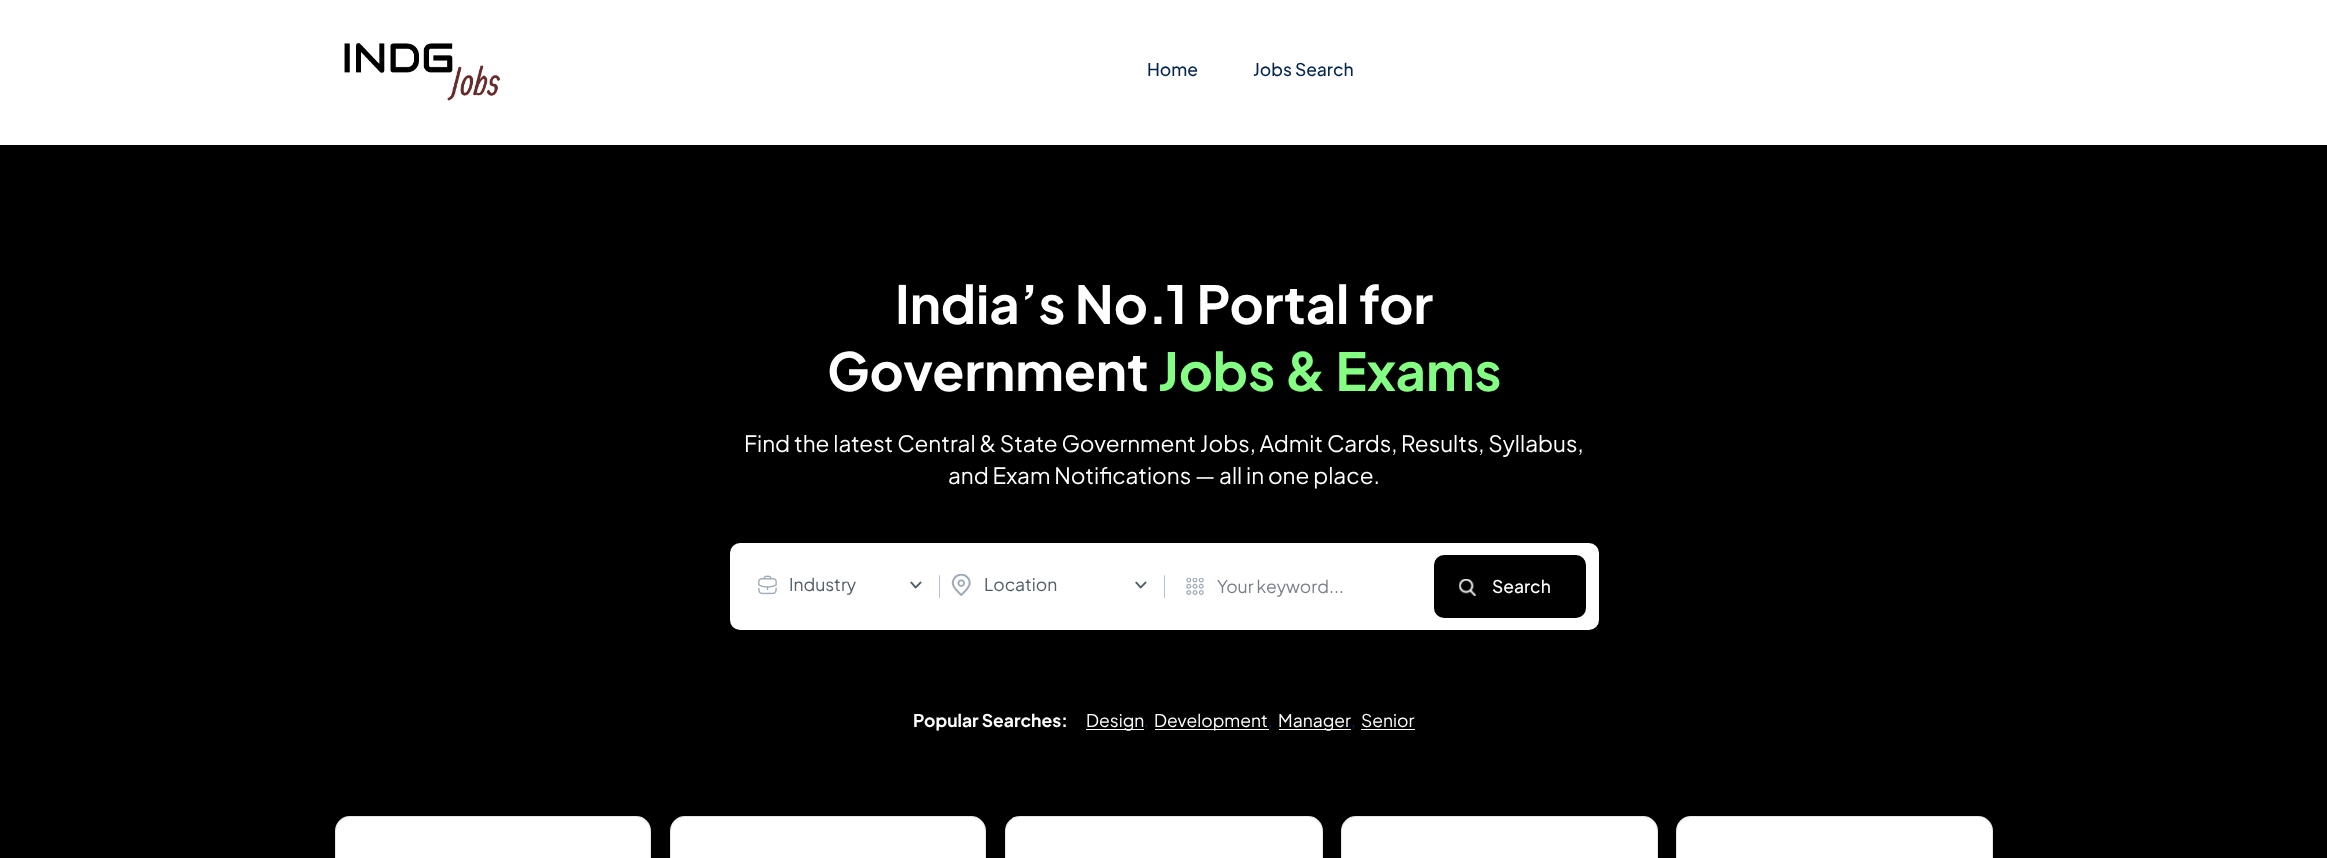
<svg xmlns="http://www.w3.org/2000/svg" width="2327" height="858">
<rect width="100%" height="100%" fill="#fff"/>
<image x="344" y="43" width="157" height="58" href="media/1.png"/>
<text x="1147" y="76" style="font-family:Plus Jakarta Sans;font-size:17.5px;font-weight:500;fill:#05264e">Home</text>
<text x="1253" y="76" style="font-family:Plus Jakarta Sans;font-size:17.5px;font-weight:500;fill:#05264e">Jobs Search</text>
<rect y="145" width="2327" height="713" fill="#000"/>
<text x="895" y="324" style="font-family:Plus Jakarta Sans;font-size:52.5px;font-weight:bold;fill:#fff">India’s No.1 Portal for</text>
<text x="827" y="391" style="font-family:Plus Jakarta Sans;font-size:52.5px;font-weight:bold;fill:#fff">Government</text>
<text x="1158" y="391" style="font-family:Plus Jakarta Sans;font-size:52.5px;font-weight:bold;fill:#85ff83">Jobs &amp; Exams</text>
<text x="744" y="452" style="font-family:Plus Jakarta Sans;font-size:22.5px;fill:#fff">Find the latest Central &amp; State Government Jobs, Admit Cards, Results, Syllabus,</text>
<text x="948" y="484" style="font-family:Plus Jakarta Sans;font-size:22.5px;fill:#fff">and Exam Notifications — all in one place.</text>
<rect x="730" y="543" width="869" height="87" rx="10" fill="#fff"/>
<image x="758" y="575" width="19" height="20" href="media/2.png"/>
<text x="789" y="591" style="font-family:Plus Jakarta Sans;font-size:17.5px;fill:#4f5e64">Industry</text>
<image x="910" y="581" width="12" height="8" href="media/3.png"/>
<rect x="939" y="575" width="1" height="23" rx="0.5" fill="#b4c0e0"/>
<image x="951" y="574" width="20" height="22" href="media/4.png"/>
<text x="984" y="591" style="font-family:Plus Jakarta Sans;font-size:17.5px;fill:#4f5e64">Location</text>
<image x="1135" y="581" width="12" height="8" href="media/3.png"/>
<rect x="1164" y="575" width="1" height="23" rx="0.5" fill="#b4c0e0"/>
<image x="1186" y="578" width="18" height="17" href="media/5.png"/>
<text x="1217" y="593" style="font-family:Plus Jakarta Sans;font-size:17.5px;fill:#777f87">Your keyword...</text>
<rect x="1434" y="555" width="152" height="63" rx="10" fill="#000"/>
<image x="1459" y="579" width="17" height="17" href="media/6.png"/>
<text x="1492" y="593" style="font-family:Plus Jakarta Sans;font-size:17.5px;font-weight:500;fill:#fff">Search</text>
<text x="913" y="727" style="font-family:Plus Jakarta Sans;font-size:17.5px;font-weight:bold;fill:#fff">Popular Searches:</text>
<rect x="1086" y="729" width="58" height="1" fill="#fff"/>
<text x="1086" y="727" style="font-family:Plus Jakarta Sans;font-size:17.5px;fill:#fff">Design</text>
<text x="1144" y="727" style="font-family:Plus Jakarta Sans;font-size:17.5px;fill:#05264e">,</text>
<rect x="1155" y="729" width="114" height="1" fill="#fff"/>
<text x="1154" y="727" style="font-family:Plus Jakarta Sans;font-size:17.5px;fill:#fff">Development</text>
<text x="1268" y="727" style="font-family:Plus Jakarta Sans;font-size:17.5px;fill:#05264e">,</text>
<rect x="1279" y="729" width="72" height="1" fill="#fff"/>
<text x="1278" y="727" style="font-family:Plus Jakarta Sans;font-size:17.5px;fill:#fff">Manager</text>
<text x="1351" y="727" style="font-family:Plus Jakarta Sans;font-size:17.5px;fill:#05264e">,</text>
<text x="1361" y="727" style="font-family:Plus Jakarta Sans;font-size:17.5px;fill:#fff">Senior</text>
<rect x="1361" y="729" width="54" height="1" fill="#fff"/>
<rect x="335" y="816" width="316" height="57" rx="15" fill="#fff"/>
<rect x="335.5" y="816.5" width="315" height="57" rx="14.5" fill="none" stroke="#0612241a"/>
<rect x="670" y="816" width="316" height="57" rx="15" fill="#fff"/>
<rect x="670.5" y="816.5" width="315" height="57" rx="14.5" fill="none" stroke="#0612241a"/>
<rect x="1005" y="816" width="318" height="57" rx="15" fill="#fff"/>
<rect x="1005.5" y="816.5" width="317" height="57" rx="14.5" fill="none" stroke="#0612241a"/>
<rect x="1341" y="816" width="317" height="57" rx="15" fill="#fff"/>
<rect x="1341.5" y="816.5" width="316" height="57" rx="14.5" fill="none" stroke="#0612241a"/>
<rect x="1676" y="816" width="317" height="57" rx="15" fill="#fff"/>
<rect x="1676.5" y="816.5" width="316" height="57" rx="14.5" fill="none" stroke="#0612241a"/>
</svg>
